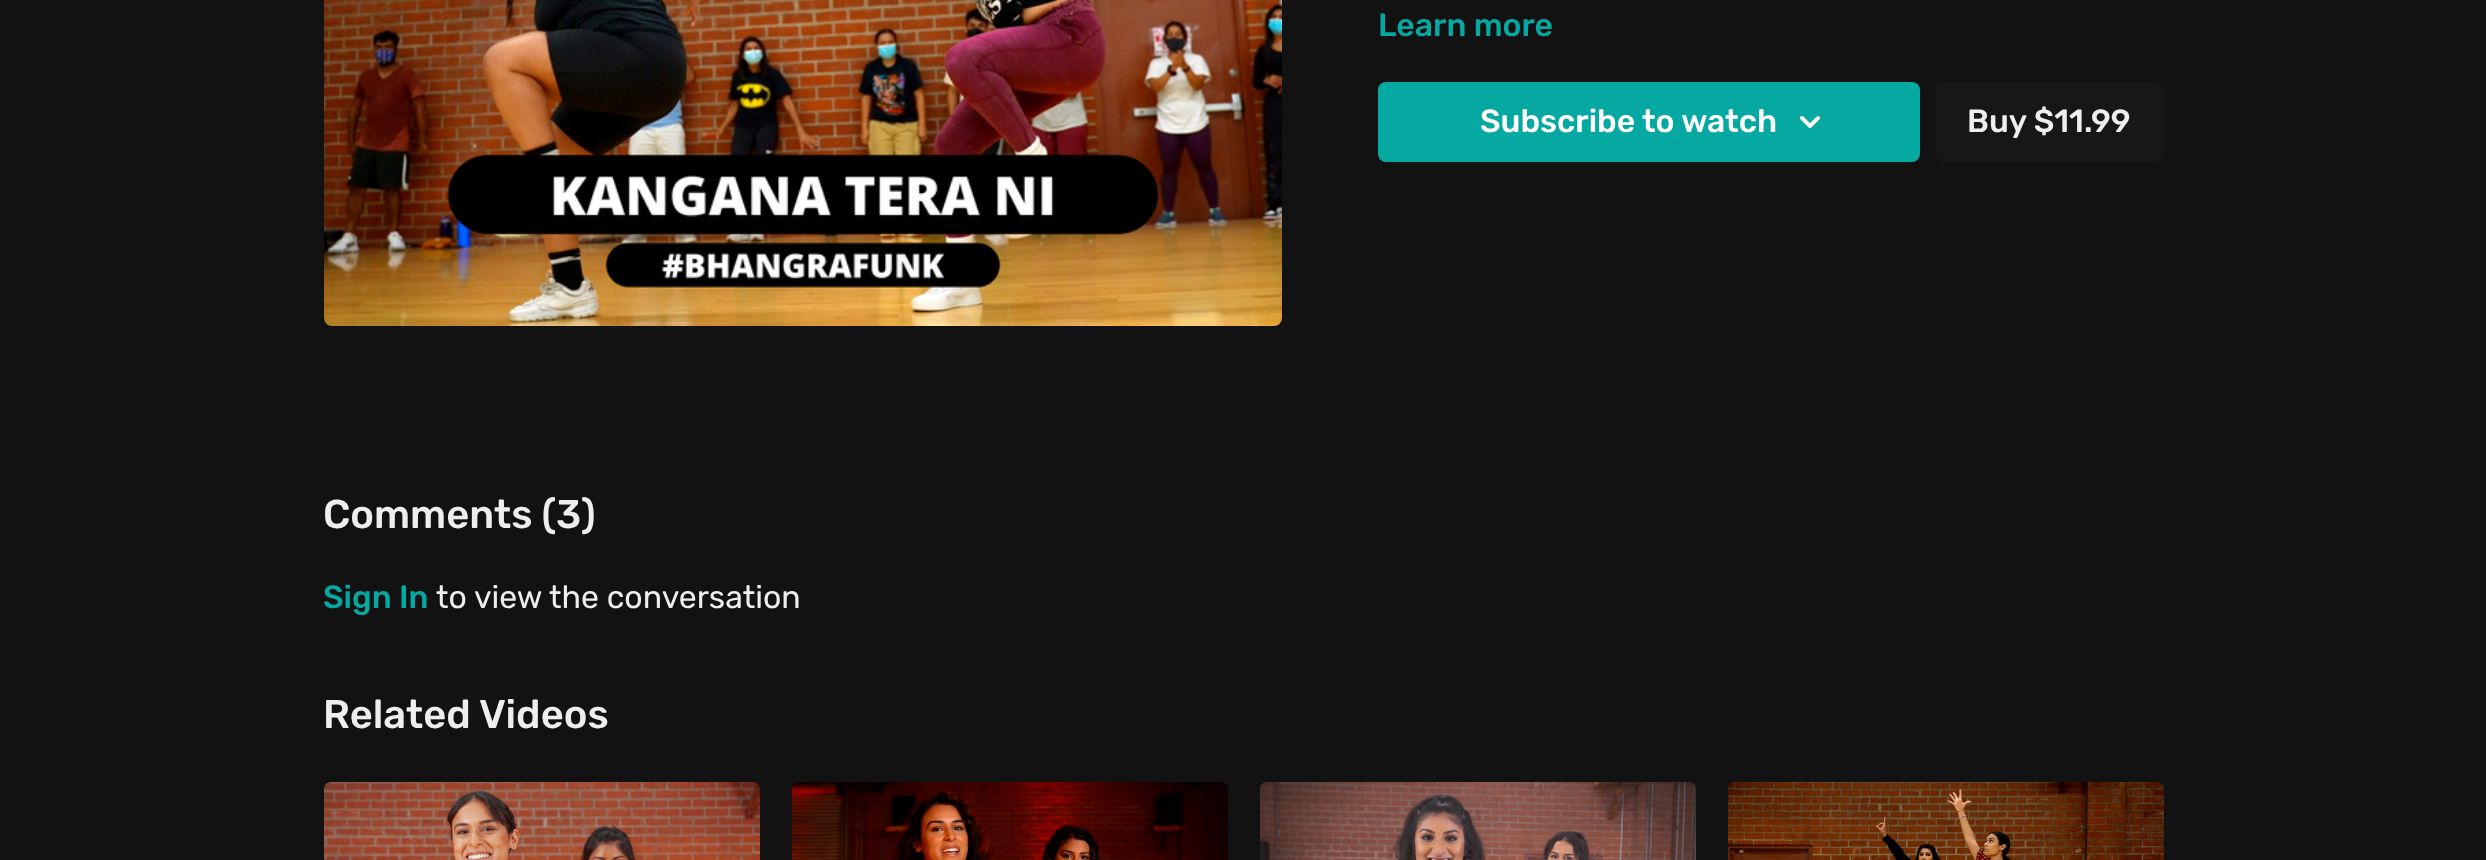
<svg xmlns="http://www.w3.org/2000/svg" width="2486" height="860">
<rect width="100%" height="100%" fill="#121212"/>
<image x="324" y="0" width="958" height="326" href="media/1.png"/>
<text x="1378" y="36" style="font-family:Rubik;font-size:32px;font-weight:500;fill:#05a9a1">Learn more</text>
<rect x="1378" y="82" width="542" height="80" rx="8" fill="#05a9a1"/>
<text x="1480" y="132" style="font-family:Rubik;font-size:32px;font-weight:500;fill:#fff">Subscribe to watch</text>
<image x="1800" y="116" width="20" height="12" href="media/2.png"/>
<rect x="1936" y="82" width="228" height="80" rx="8" fill="#171717"/>
<text x="1967" y="132" style="font-family:Rubik;font-size:32px;font-weight:500;fill:#eee">Buy $11.99</text>
<text x="323" y="528" style="font-family:Rubik;font-size:40px;font-weight:500;fill:#eee">Comments (3)</text>
<text x="323" y="608" style="font-family:Rubik;font-size:32px;font-weight:500;fill:#05a9a1">Sign In</text>
<text x="436" y="608" style="font-family:Rubik;font-size:32px;fill:#eee">to view the conversation</text>
<text x="323" y="728" style="font-family:Rubik;font-size:40px;font-weight:500;fill:#eee">Related Videos</text>
<image x="324" y="782" width="436" height="78" href="media/3.png"/>
<image x="792" y="782" width="436" height="78" href="media/4.png"/>
<image x="1260" y="782" width="436" height="78" href="media/5.png"/>
<image x="1728" y="782" width="436" height="78" href="media/6.png"/>
</svg>
